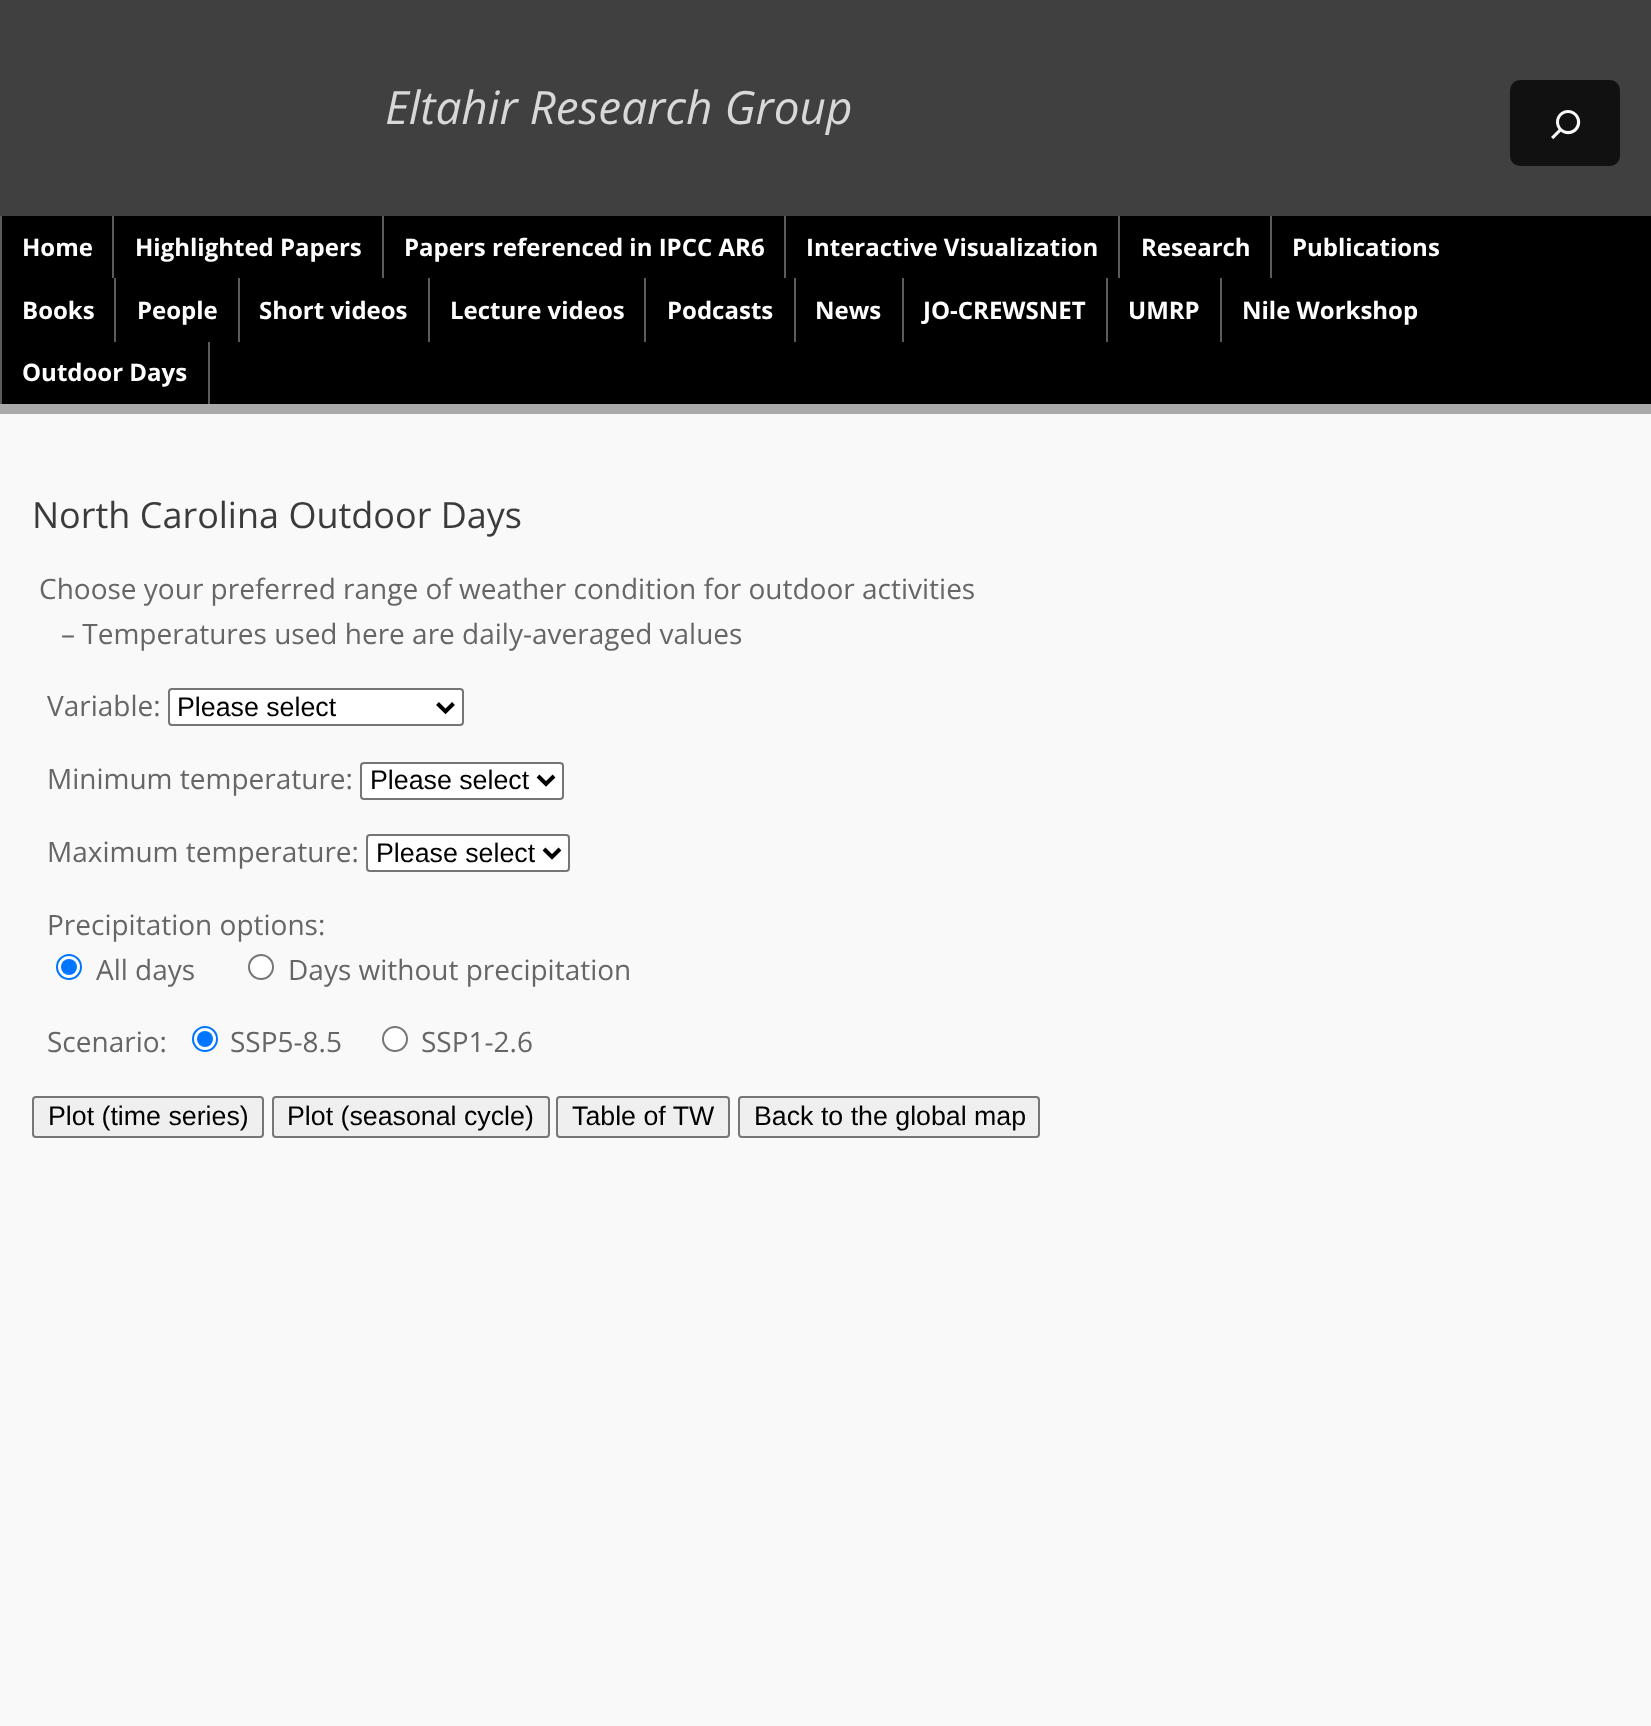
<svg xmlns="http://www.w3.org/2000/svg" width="1651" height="1726">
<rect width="100%" height="100%" fill="#f9f9f9"/>
<rect width="1651" height="216" fill="#404040"/>
<text x="385" y="124" style="font-family:Open Sans;font-size:45.9px;font-style:italic;fill:#d8d8d8">Eltahir Research Group</text>
<rect x="1510" y="80" width="110" height="86" rx="10" fill="#111"/>
<image x="1551" y="110" width="30" height="30" href="media/1.png"/>
<rect x="2" y="216" width="1649" height="188" fill="#000"/>
<rect y="404" width="1651" height="10" fill="#a9a9a9"/>
<rect y="216" width="2" height="188" fill="#5b5b5b"/>
<text x="22" y="256" style="font-family:Open Sans;font-size:24px;font-weight:bold;fill:#fff">Home</text>
<rect x="112" y="216" width="2" height="62" fill="#5b5b5b"/>
<text x="135" y="256" style="font-family:Open Sans;font-size:24px;font-weight:bold;fill:#fff">Highlighted Papers</text>
<rect x="382" y="216" width="2" height="62" fill="#5b5b5b"/>
<text x="404" y="256" style="font-family:Open Sans;font-size:24px;font-weight:bold;fill:#fff">Papers referenced in IPCC AR6</text>
<rect x="784" y="216" width="2" height="62" fill="#5b5b5b"/>
<text x="806" y="256" style="font-family:Open Sans;font-size:24px;font-weight:bold;fill:#fff">Interactive Visualization</text>
<rect x="1118" y="216" width="2" height="62" fill="#5b5b5b"/>
<text x="1141" y="256" style="font-family:Open Sans;font-size:24px;font-weight:bold;fill:#fff">Research</text>
<rect x="1270" y="216" width="2" height="62" fill="#5b5b5b"/>
<text x="1292" y="256" style="font-family:Open Sans;font-size:24px;font-weight:bold;fill:#fff">Publications</text>
<text x="22" y="319" style="font-family:Open Sans;font-size:24px;font-weight:bold;fill:#fff">Books</text>
<rect x="114" y="278" width="2" height="64" fill="#5b5b5b"/>
<text x="137" y="319" style="font-family:Open Sans;font-size:24px;font-weight:bold;fill:#fff">People</text>
<rect x="238" y="278" width="2" height="64" fill="#5b5b5b"/>
<text x="259" y="319" style="font-family:Open Sans;font-size:24px;font-weight:bold;fill:#fff">Short videos</text>
<rect x="428" y="278" width="2" height="64" fill="#5b5b5b"/>
<text x="450" y="319" style="font-family:Open Sans;font-size:24px;font-weight:bold;fill:#fff">Lecture videos</text>
<rect x="644" y="278" width="2" height="64" fill="#5b5b5b"/>
<text x="667" y="319" style="font-family:Open Sans;font-size:24px;font-weight:bold;fill:#fff">Podcasts</text>
<rect x="794" y="278" width="2" height="64" fill="#5b5b5b"/>
<text x="815" y="319" style="font-family:Open Sans;font-size:24px;font-weight:bold;fill:#fff">News</text>
<rect x="902" y="278" width="2" height="64" fill="#5b5b5b"/>
<text x="923" y="319" style="font-family:Open Sans;font-size:24px;font-weight:bold;fill:#fff">JO-CREWSNET</text>
<rect x="1106" y="278" width="2" height="64" fill="#5b5b5b"/>
<text x="1128" y="319" style="font-family:Open Sans;font-size:24px;font-weight:bold;fill:#fff">UMRP</text>
<rect x="1220" y="278" width="2" height="64" fill="#5b5b5b"/>
<text x="1242" y="319" style="font-family:Open Sans;font-size:24px;font-weight:bold;fill:#fff">Nile Workshop</text>
<rect x="208" y="342" width="2" height="62" fill="#5b5b5b"/>
<text x="22" y="381" style="font-family:Open Sans;font-size:24px;font-weight:bold;fill:#fff">Outdoor Days</text>
<text x="32" y="528" style="font-family:Open Sans;font-size:36px;fill:#3b3b3b">North Carolina Outdoor Days</text>
<text x="39" y="599" style="font-family:Open Sans;font-size:28px;fill:#666">Choose your preferred range of weather condition for outdoor activities</text>
<text x="61" y="644" style="font-family:Open Sans;font-size:28px;fill:#666">– Temperatures used here are daily-averaged values</text>
<text x="47" y="716" style="font-family:Open Sans;font-size:28px;fill:#666">Variable:</text>
<rect x="169" y="689" width="294" height="36" rx="3" fill="#fff" stroke="#767676" stroke-width="2"/>
<path d="M437.5 703.5l8 8l8-8" fill="none" stroke="#000" stroke-width="4"/>
<text x="177" y="716" style="font-family:Liberation Sans;font-size:26.75px;fill:#000">Please select</text>
<text x="47" y="789" style="font-family:Open Sans;font-size:28px;fill:#666">Minimum temperature:</text>
<rect x="361" y="763" width="202" height="36" rx="3" fill="#fff" stroke="#767676" stroke-width="2"/>
<path d="M538 776l8 8l8-8" fill="none" stroke="#000" stroke-width="4"/>
<text x="370" y="789" style="font-family:Liberation Sans;font-size:26.75px;fill:#000">Please select</text>
<text x="47" y="862" style="font-family:Open Sans;font-size:28px;fill:#666">Maximum temperature:</text>
<rect x="367" y="835" width="202" height="36" rx="3" fill="#fff" stroke="#767676" stroke-width="2"/>
<path d="M544 849l8 8l8-8" fill="none" stroke="#000" stroke-width="4"/>
<text x="376" y="862" style="font-family:Liberation Sans;font-size:26.75px;fill:#000">Please select</text>
<text x="47" y="935" style="font-family:Open Sans;font-size:28px;fill:#666">Precipitation options:</text>
<circle cx="69" cy="967" r="12" fill="#fff" stroke="#0075ff" stroke-width="2"/>
<circle cx="69" cy="967" r="8" fill="#0075ff"/>
<text x="96" y="980" style="font-family:Open Sans;font-size:28px;fill:#666">All days</text>
<circle cx="261" cy="967" r="12" fill="#fff" stroke="#767676" stroke-width="2"/>
<text x="288" y="980" style="font-family:Open Sans;font-size:28px;fill:#666">Days without precipitation</text>
<text x="47" y="1052" style="font-family:Open Sans;font-size:28px;fill:#666">Scenario:</text>
<circle cx="205" cy="1039" r="12" fill="#fff" stroke="#0075ff" stroke-width="2"/>
<circle cx="205" cy="1039" r="8" fill="#0075ff"/>
<text x="230" y="1052" style="font-family:Open Sans;font-size:28px;fill:#666">SSP5-8.5</text>
<circle cx="395" cy="1039" r="12" fill="#fff" stroke="#767676" stroke-width="2"/>
<text x="421" y="1052" style="font-family:Open Sans;font-size:28px;fill:#666">SSP1-2.6</text>
<rect x="33" y="1097" width="230" height="40" rx="3" fill="#efefef" stroke="#767676" stroke-width="2"/>
<text x="48" y="1125" style="font-family:Liberation Sans;font-size:26.75px;fill:#000">Plot (time series)</text>
<rect x="273" y="1097" width="276" height="40" rx="3" fill="#efefef" stroke="#767676" stroke-width="2"/>
<text x="287" y="1125" style="font-family:Liberation Sans;font-size:26.75px;fill:#000">Plot (seasonal cycle)</text>
<rect x="557" y="1097" width="172" height="40" rx="3" fill="#efefef" stroke="#767676" stroke-width="2"/>
<text x="572" y="1125" style="font-family:Liberation Sans;font-size:26.75px;fill:#000">Table of TW</text>
<rect x="739" y="1097" width="300" height="40" rx="3" fill="#efefef" stroke="#767676" stroke-width="2"/>
<text x="754" y="1125" style="font-family:Liberation Sans;font-size:26.75px;fill:#000">Back to the global map</text>
</svg>
